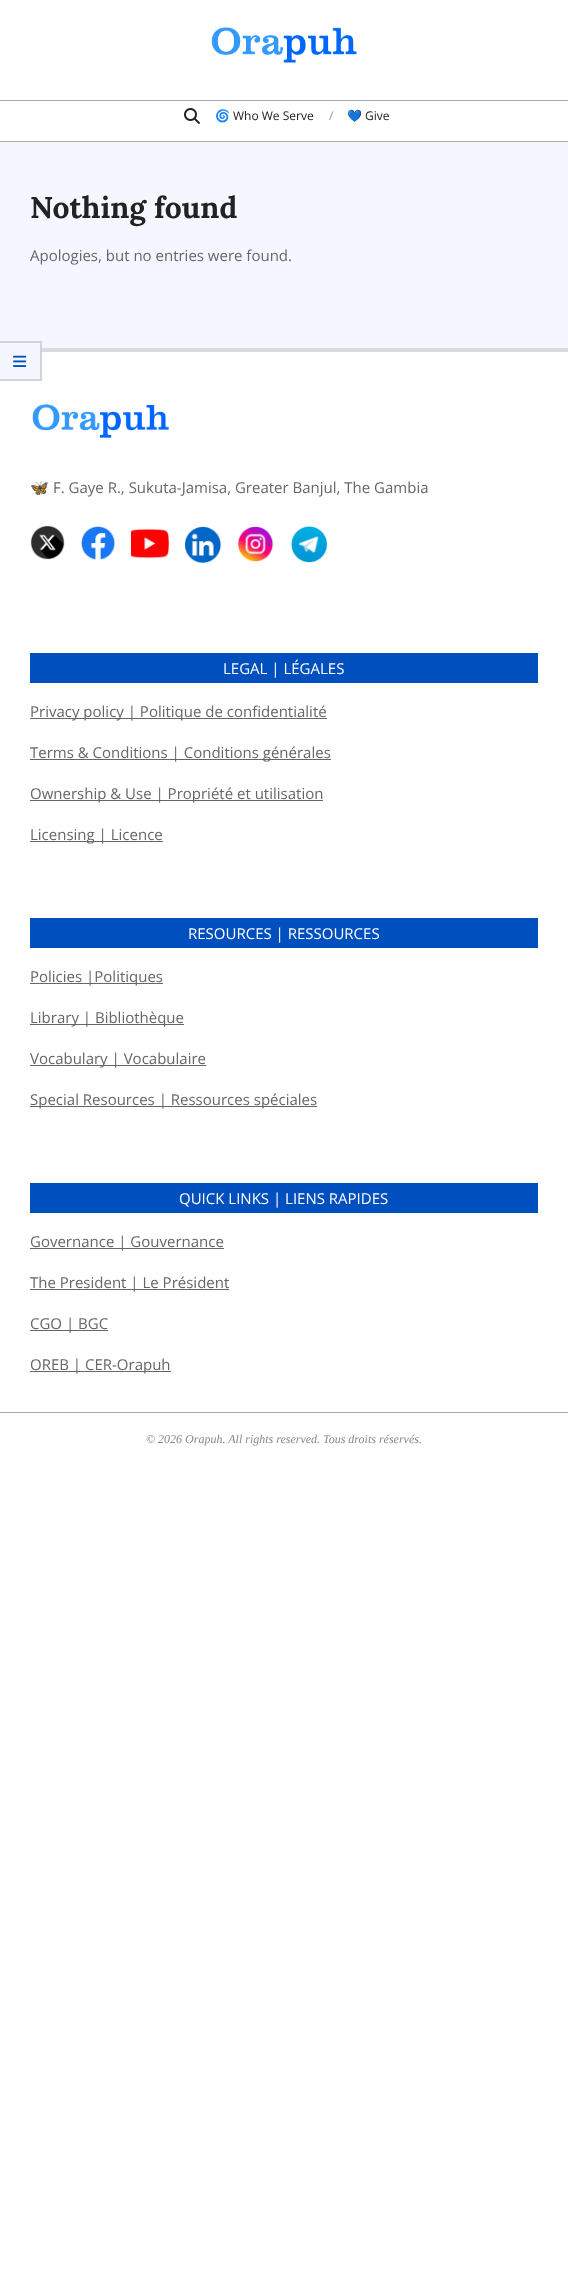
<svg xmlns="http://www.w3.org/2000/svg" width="568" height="2275">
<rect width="100%" height="100%" fill="#fff"/>
<rect y="141" width="568" height="1" fill="#ababab"/>
<image x="211" y="27" width="146" height="36" href="media/1.png"/>
<rect y="100" width="568" height="1" fill="#ababab"/>
<image x="184" y="108" width="16" height="16" href="media/2.png"/>
<text x="215" y="120" style="font-family:Noto Color Emoji;font-size:12px;fill:#222">🌀</text>
<text x="233" y="120" style="font-family:Open Sans;font-size:12px;fill:#222">Who We Serve</text>
<text x="329" y="120" style="font-family:Open Sans;font-size:12px;fill:#919191">/</text>
<text x="347" y="120" style="font-family:Noto Color Emoji;font-size:12px;fill:#222">💙</text>
<text x="365" y="120" style="font-family:Open Sans;font-size:12px;fill:#222">Give</text>
<rect y="348" width="42" height="33" fill="#f4f7ff"/>
<rect y="142" width="568" height="206" fill="#f4f7ff"/>
<path d="M0 341h42l-2 2h-40z" fill="#d2d4db"/>
<path d="M42 341v40l-2-2v-36z" fill="#00000024"/>
<path d="M42 381h-42v-2h40z" fill="#00000024"/>
<image x="13" y="355" width="14" height="12" href="media/3.png"/>
<text x="30" y="218" style="font-family:Lora;font-size:30px;font-weight:bold;fill:#222">Nothing found</text>
<text x="30" y="261" style="font-family:Open Sans;font-size:15px;fill:#666">Apologies, but no entries were found.</text>
<rect x="42" y="348" width="526" height="4" fill="#dbdbdb"/>
<image x="32" y="404" width="137" height="34" href="media/4.png"/>
<text x="30" y="493" style="font-family:Noto Color Emoji;font-size:15px;fill:#666">🦋</text>
<text x="53" y="493" style="font-family:Open Sans;font-size:15px;fill:#666">F. Gaye R., Sukuta-Jamisa, Greater Banjul, The Gambia</text>
<image x="30" y="525" width="35" height="35" href="media/5.png"/>
<image x="81" y="526" width="34" height="34" href="media/6.png"/>
<image x="131" y="528" width="38" height="31" href="media/7.png"/>
<image x="184" y="526" width="38" height="37" href="media/8.png"/>
<image x="238" y="526" width="36" height="36" href="media/9.png"/>
<image x="291" y="526" width="37" height="37" href="media/10.png"/>
<rect x="30" y="653" width="508" height="30" fill="#004fbf"/>
<text x="223" y="674" style="font-family:Open Sans;font-size:15px;fill:#fff">LEGAL | LÉGALES</text>
<rect x="30" y="718" width="297" height="1" fill="#666"/>
<text x="30" y="717" style="font-family:Open Sans;font-size:15px;fill:#666">Privacy policy | Politique de confidentialité</text>
<rect x="30" y="759" width="301" height="1" fill="#666"/>
<text x="30" y="758" style="font-family:Open Sans;font-size:15px;fill:#666">Terms &amp; Conditions | Conditions générales</text>
<rect x="30" y="800" width="293" height="1" fill="#666"/>
<text x="30" y="799" style="font-family:Open Sans;font-size:15px;fill:#666">Ownership &amp; Use | Propriété et utilisation</text>
<rect x="30" y="841" width="133" height="1" fill="#666"/>
<text x="30" y="840" style="font-family:Open Sans;font-size:15px;fill:#666">Licensing | Licence</text>
<rect x="30" y="918" width="508" height="30" fill="#004fbf"/>
<text x="188" y="939" style="font-family:Open Sans;font-size:15px;fill:#fff">RESOURCES | RESSOURCES</text>
<rect x="30" y="983" width="133" height="1" fill="#666"/>
<text x="30" y="982" style="font-family:Open Sans;font-size:15px;fill:#666">Policies |Politiques</text>
<rect x="30" y="1024" width="154" height="1" fill="#666"/>
<text x="30" y="1023" style="font-family:Open Sans;font-size:15px;fill:#666">Library | Bibliothèque</text>
<rect x="30" y="1065" width="176" height="1" fill="#666"/>
<text x="30" y="1064" style="font-family:Open Sans;font-size:15px;fill:#666">Vocabulary | Vocabulaire</text>
<rect x="30" y="1106" width="287" height="1" fill="#666"/>
<text x="30" y="1105" style="font-family:Open Sans;font-size:15px;fill:#666">Special Resources | Ressources spéciales</text>
<rect x="30" y="1183" width="508" height="30" fill="#004fbf"/>
<text x="179" y="1204" style="font-family:Open Sans;font-size:15px;fill:#fff">QUICK LINKS | LIENS RAPIDES</text>
<rect x="30" y="1248" width="194" height="1" fill="#666"/>
<text x="30" y="1247" style="font-family:Open Sans;font-size:15px;fill:#666">Governance | Gouvernance</text>
<rect x="30" y="1289" width="199" height="1" fill="#666"/>
<text x="30" y="1288" style="font-family:Open Sans;font-size:15px;fill:#666">The President | Le Président</text>
<rect x="30" y="1330" width="78" height="1" fill="#666"/>
<text x="30" y="1329" style="font-family:Open Sans;font-size:15px;fill:#666">CGO | BGC</text>
<rect x="30" y="1371" width="141" height="1" fill="#666"/>
<text x="30" y="1370" style="font-family:Open Sans;font-size:15px;fill:#666">OREB | CER-Orapuh</text>
<rect y="1412" width="568" height="1" fill="#ababab"/>
<text x="146" y="1443" style="font-family:Liberation Serif;font-size:12px;font-style:italic;fill:#888">© 2026 Orapuh. All rights reserved. Tous droits réservés.</text>
</svg>
